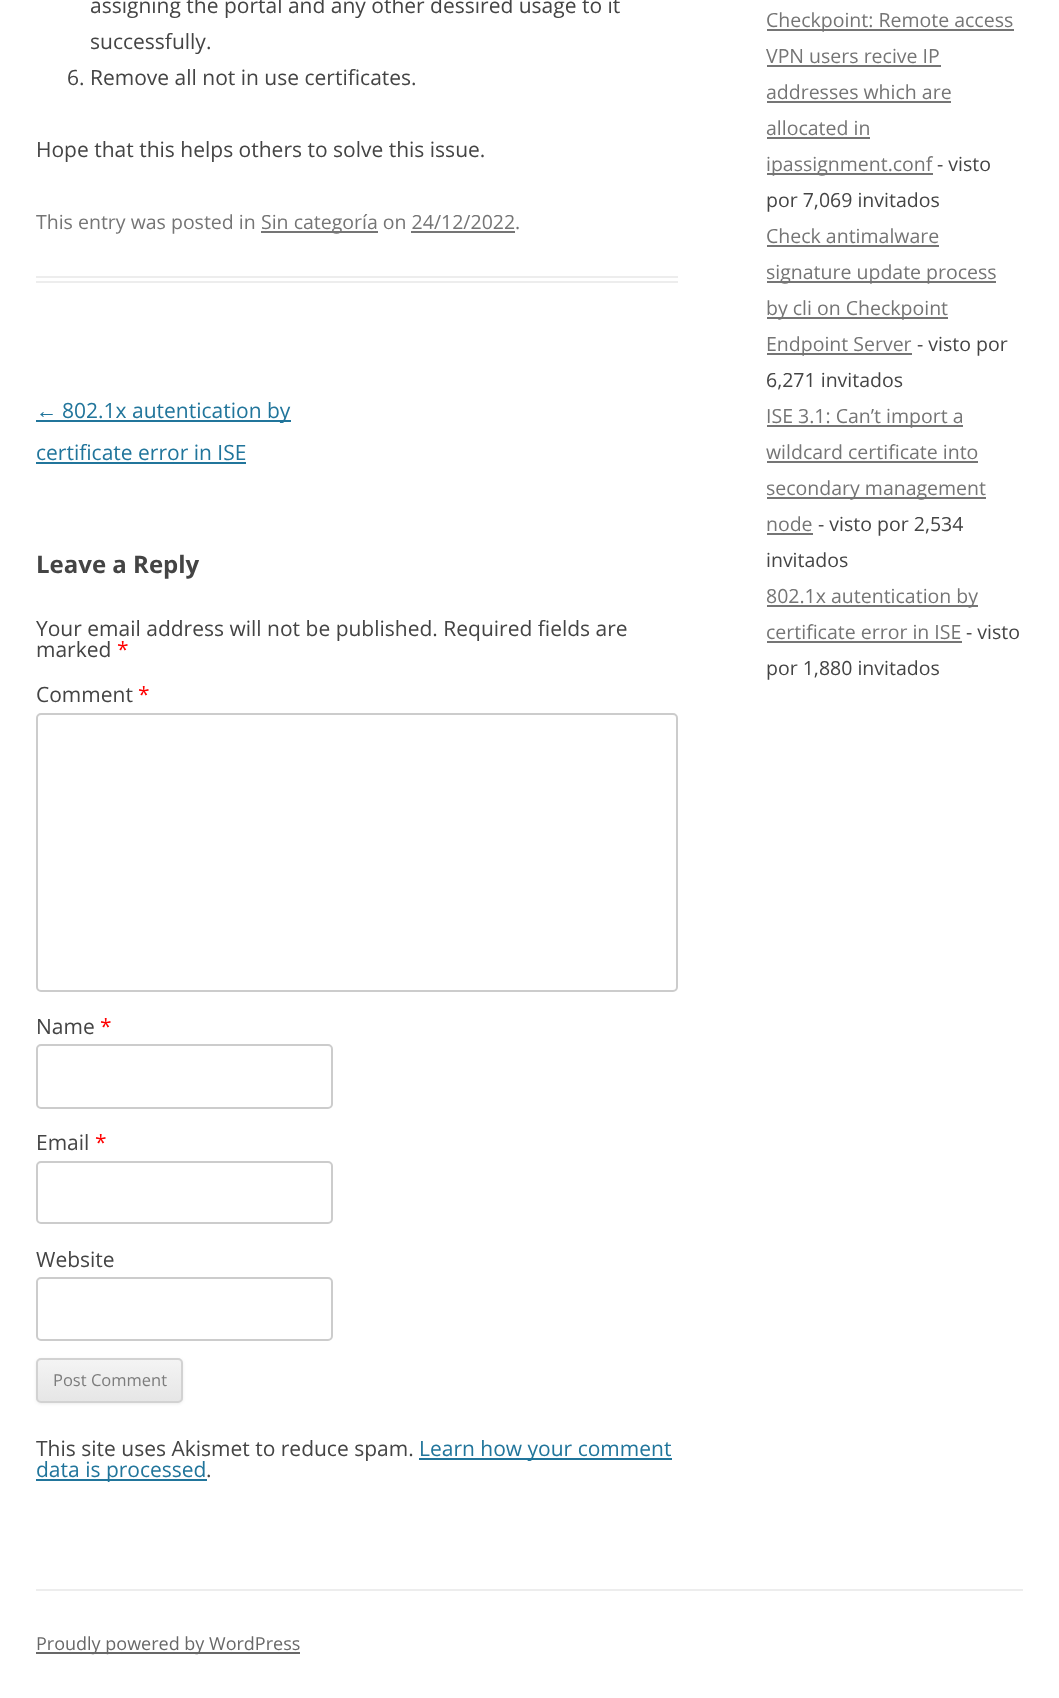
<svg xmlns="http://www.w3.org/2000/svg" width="1059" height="1698">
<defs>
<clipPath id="clip1"><rect x="36" y="1358" width="147" height="45" rx="5"/></clipPath>
<linearGradient id="g1" gradientUnits="userSpaceOnUse" x1="110" y1="1359" x2="110" y2="1401"><stop offset="0" stop-color="#f4f4f4"/><stop offset="1" stop-color="#e6e6e6"/></linearGradient>
</defs>
<rect width="100%" height="100%" fill="#fff"/>
<rect x="36" y="276" width="642" height="2" fill="#ededed"/>
<rect x="36" y="281" width="642" height="2" fill="#ededed"/>
<text x="90" y="13" style="font-family:Open Sans;font-size:21px;fill:#444">assigning the portal and any other dessired usage to it</text>
<text x="90" y="49" style="font-family:Open Sans;font-size:21px;fill:#444">successfully.</text>
<text x="67" y="85" style="font-family:Open Sans;font-size:21px;fill:#444">6. Remove all not in use certificates.</text>
<text x="36" y="157" style="font-family:Open Sans;font-size:21px;fill:#444">Hope that this helps others to solve this issue.</text>
<text x="36" y="229" style="font-family:Open Sans;font-size:19.5px;fill:#757575">This entry was posted in</text>
<rect x="261" y="231" width="117" height="2" fill="#757575"/>
<text x="261" y="229" style="font-family:Open Sans;font-size:19.5px;fill:#757575">Sin categoría on 24/12/2022.</text>
<rect x="411" y="231" width="104" height="2" fill="#757575"/>
<text x="36" y="418" style="font-family:Liberation Sans;font-size:21px;fill:#21759b">←</text>
<rect x="36" y="420" width="255" height="2" fill="#21759b"/>
<text x="62" y="418" style="font-family:Open Sans;font-size:21px;fill:#21759b">802.1x autentication by</text>
<text x="36" y="460" style="font-family:Open Sans;font-size:21px;fill:#21759b">certificate error in ISE</text>
<rect x="36" y="462" width="210" height="2" fill="#21759b"/>
<text x="36" y="573" style="font-family:Open Sans;font-size:24px;font-weight:bold;fill:#444">Leave a Reply</text>
<text x="36" y="636" style="font-family:Open Sans;font-size:21px;fill:#444">Your email address will not be published. Required fields are</text>
<text x="36" y="657" style="font-family:Open Sans;font-size:21px;fill:#444">marked</text>
<text x="117" y="657" style="font-family:Open Sans;font-size:21px;fill:#f00">*</text>
<text x="36" y="702" style="font-family:Open Sans;font-size:21px;fill:#444">Comment</text>
<text x="138" y="702" style="font-family:Open Sans;font-size:21px;fill:#f00">*</text>
<rect x="37" y="714" width="640" height="277" rx="4" fill="none" stroke="#ccc" stroke-width="2"/>
<text x="36" y="1034" style="font-family:Open Sans;font-size:21px;fill:#444">Name</text>
<text x="100" y="1034" style="font-family:Open Sans;font-size:21px;fill:#f00">*</text>
<rect x="37" y="1045" width="295" height="63" rx="4" fill="none" stroke="#ccc" stroke-width="2"/>
<text x="36" y="1150" style="font-family:Open Sans;font-size:21px;fill:#444">Email</text>
<text x="95" y="1150" style="font-family:Open Sans;font-size:21px;fill:#f00">*</text>
<rect x="37" y="1162" width="295" height="61" rx="4" fill="none" stroke="#ccc" stroke-width="2"/>
<text x="36" y="1267" style="font-family:Open Sans;font-size:21px;fill:#444">Website</text>
<rect x="37" y="1278" width="295" height="62" rx="4" fill="none" stroke="#ccc" stroke-width="2"/>
<rect x="36" y="1359" width="147" height="45" rx="5" fill="#4040401a" filter="blur(1.5px)"/>
<g clip-path="url(#clip1)">
<rect x="36" y="1359" width="147" height="42" fill="url(#g1)"/>
</g>
<rect x="37" y="1359" width="145" height="43" rx="4" fill="none" stroke="#d2d2d2" stroke-width="2"/>
<text x="53" y="1386" style="font-family:Open Sans;font-size:16.5px;fill:#7c7c7c">Post Comment</text>
<text x="36" y="1456" style="font-family:Open Sans;font-size:21px;fill:#444">This site uses Akismet to reduce spam.</text>
<rect x="419" y="1458" width="253" height="2" fill="#21759b"/>
<text x="419" y="1456" style="font-family:Open Sans;font-size:21px;fill:#21759b">Learn how your comment</text>
<rect x="36" y="1479" width="171" height="2" fill="#21759b"/>
<text x="36" y="1477" style="font-family:Open Sans;font-size:21px;fill:#21759b">data is processed</text>
<text x="206" y="1477" style="font-family:Open Sans;font-size:21px;fill:#444">.</text>
<rect x="767" y="29" width="247" height="2" fill="#757575"/>
<text x="766" y="27" style="font-family:Open Sans;font-size:19.5px;fill:#757575">Checkpoint: Remote access</text>
<text x="766" y="63" style="font-family:Open Sans;font-size:19.5px;fill:#757575">VPN users recive IP</text>
<rect x="767" y="65" width="174" height="2" fill="#757575"/>
<text x="766" y="99" style="font-family:Open Sans;font-size:19.5px;fill:#757575">addresses which are</text>
<rect x="767" y="101" width="184" height="2" fill="#757575"/>
<text x="766" y="135" style="font-family:Open Sans;font-size:19.5px;fill:#757575">allocated in</text>
<rect x="767" y="137" width="103" height="2" fill="#757575"/>
<rect x="767" y="173" width="166" height="2" fill="#757575"/>
<text x="766" y="171" style="font-family:Open Sans;font-size:19.5px;fill:#757575">ipassignment.conf</text>
<text x="937" y="171" style="font-family:Open Sans;font-size:19.5px;fill:#444">- visto</text>
<text x="766" y="207" style="font-family:Open Sans;font-size:19.5px;fill:#444">por 7,069 invitados</text>
<text x="766" y="243" style="font-family:Open Sans;font-size:19.5px;fill:#757575">Check antimalware</text>
<rect x="767" y="245" width="172" height="2" fill="#757575"/>
<rect x="767" y="281" width="229" height="2" fill="#757575"/>
<text x="766" y="279" style="font-family:Open Sans;font-size:19.5px;fill:#757575">signature update process</text>
<rect x="767" y="317" width="181" height="2" fill="#757575"/>
<text x="766" y="315" style="font-family:Open Sans;font-size:19.5px;fill:#757575">by cli on Checkpoint</text>
<rect x="767" y="353" width="145" height="2" fill="#757575"/>
<text x="766" y="351" style="font-family:Open Sans;font-size:19.5px;fill:#757575">Endpoint Server</text>
<text x="917" y="351" style="font-family:Open Sans;font-size:19.5px;fill:#444">- visto por</text>
<text x="766" y="387" style="font-family:Open Sans;font-size:19.5px;fill:#444">6,271 invitados</text>
<rect x="767" y="425" width="196" height="2" fill="#757575"/>
<text x="766" y="423" style="font-family:Open Sans;font-size:19.5px;fill:#757575">ISE 3.1: Can’t import a</text>
<text x="766" y="459" style="font-family:Open Sans;font-size:19.5px;fill:#757575">wildcard certificate into</text>
<rect x="767" y="461" width="211" height="2" fill="#757575"/>
<rect x="767" y="497" width="219" height="2" fill="#757575"/>
<text x="766" y="495" style="font-family:Open Sans;font-size:19.5px;fill:#757575">secondary management</text>
<text x="766" y="531" style="font-family:Open Sans;font-size:19.5px;fill:#757575">node</text>
<rect x="767" y="533" width="46" height="2" fill="#757575"/>
<text x="818" y="531" style="font-family:Open Sans;font-size:19.5px;fill:#444">- visto por 2,534</text>
<text x="766" y="567" style="font-family:Open Sans;font-size:19.5px;fill:#444">invitados</text>
<rect x="767" y="605" width="211" height="2" fill="#757575"/>
<text x="766" y="603" style="font-family:Open Sans;font-size:19.5px;fill:#757575">802.1x autentication by</text>
<text x="766" y="639" style="font-family:Open Sans;font-size:19.5px;fill:#757575">certificate error in ISE</text>
<rect x="767" y="641" width="195" height="2" fill="#757575"/>
<text x="966" y="639" style="font-family:Open Sans;font-size:19.5px;fill:#444">- visto</text>
<text x="766" y="675" style="font-family:Open Sans;font-size:19.5px;fill:#444">por 1,880 invitados</text>
<rect x="36" y="1589" width="987" height="2" fill="#ededed"/>
<rect x="36" y="1652" width="264" height="2" fill="#686868"/>
<text x="36" y="1650" style="font-family:Open Sans;font-size:18px;fill:#686868">Proudly powered by WordPress</text>
</svg>
